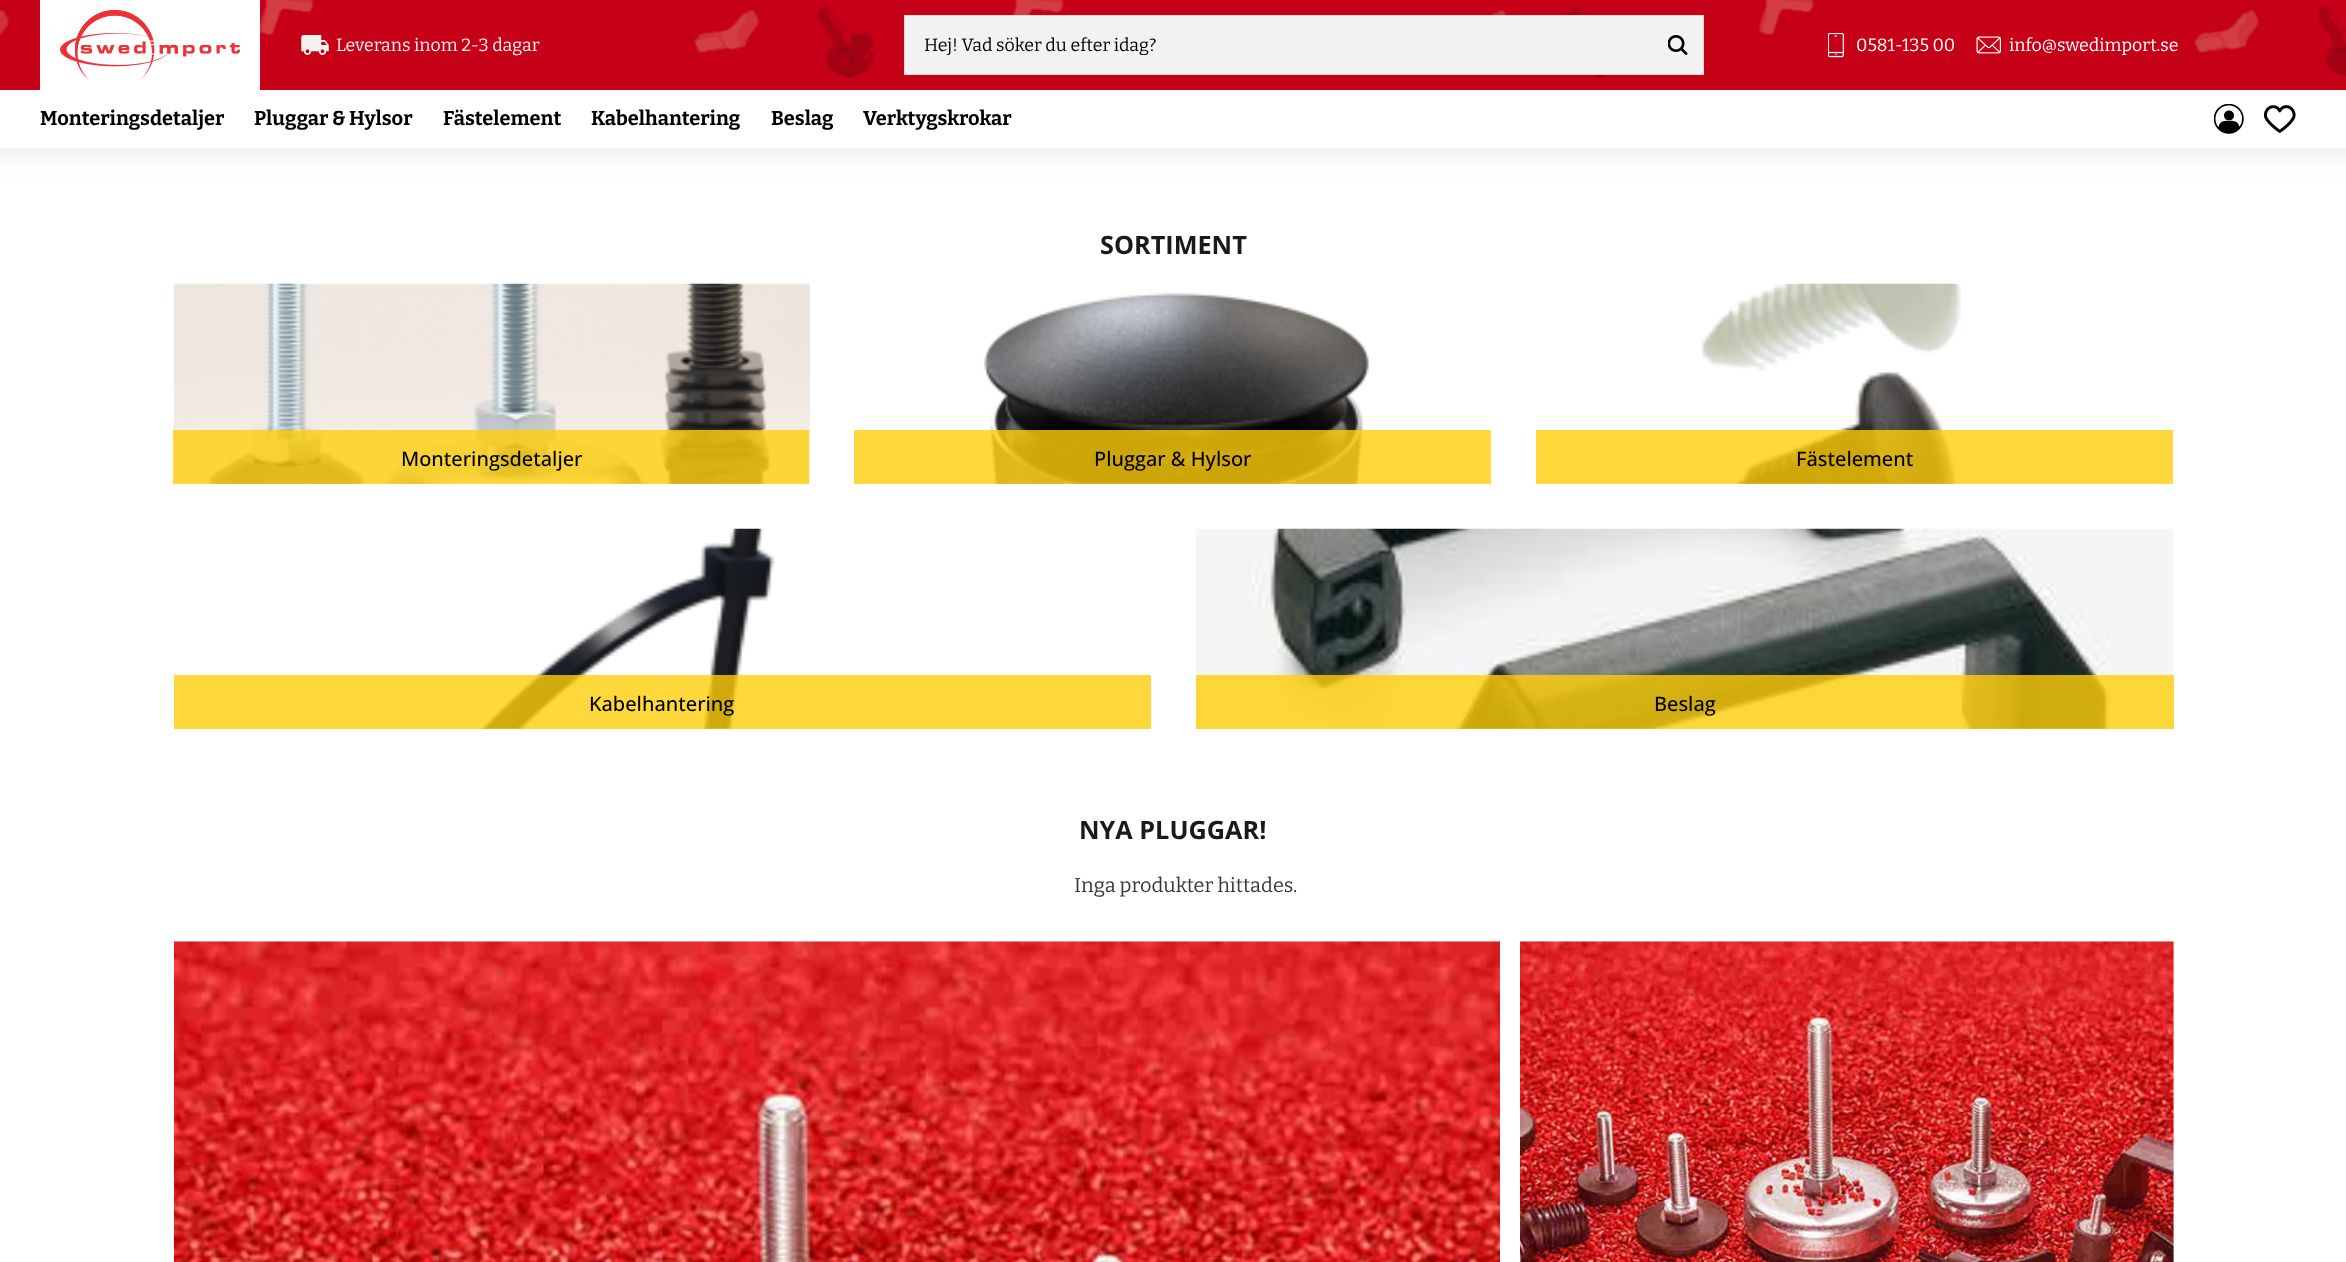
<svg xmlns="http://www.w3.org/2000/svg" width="2346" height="1262">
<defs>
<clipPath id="clip1"><rect x="925" y="34" width="703" height="21"/></clipPath>
</defs>
<rect width="100%" height="100%" fill="#fff"/>
<rect x="-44" y="94" width="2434" height="57" fill="#0000001a" filter="blur(14.5px)"/>
<image x="0" y="0" width="2346" height="90" href="media/1.png"/>
<rect x="40" width="220" height="90" fill="#fff"/>
<image x="60" y="10" width="180" height="70" href="media/2.png"/>
<image x="301" y="35" width="28" height="20" href="media/3.png"/>
<text x="336" y="51" style="font-family:Bitter;font-size:17.75px;fill:#f2f2f2">Leverans inom 2-3 dagar</text>
<rect x="904.5" y="15.5" width="799" height="59" fill="#f2f2f2" stroke="#d9d9d9"/>
<g clip-path="url(#clip1)">
<text x="924" y="51" style="font-family:Bitter;font-size:17.75px;fill:#000">Hej! Vad söker du efter idag?</text>
</g>
<image x="1668" y="35" width="20" height="20" href="media/4.png"/>
<image x="1828" y="33" width="16" height="25" href="media/5.png"/>
<text x="1856" y="51" style="font-family:Bitter;font-size:17.75px;fill:#fff">0581-135 00</text>
<image x="1976" y="36" width="25" height="18" href="media/6.png"/>
<text x="2009" y="51" style="font-family:Bitter;font-size:17.75px;fill:#fff">info@swedimport.se</text>
<rect y="90" width="2346" height="58" fill="#fff"/>
<text x="40" y="125" style="font-family:Bitter;font-size:20px;font-weight:bold;fill:#000">Monteringsdetaljer</text>
<text x="254" y="125" style="font-family:Bitter;font-size:20px;font-weight:bold;fill:#000">Pluggar &amp; Hylsor</text>
<text x="443" y="125" style="font-family:Bitter;font-size:20px;font-weight:bold;fill:#000">Fästelement</text>
<text x="591" y="125" style="font-family:Bitter;font-size:20px;font-weight:bold;fill:#000">Kabelhantering</text>
<text x="771" y="125" style="font-family:Bitter;font-size:20px;font-weight:bold;fill:#000">Beslag</text>
<text x="863" y="125" style="font-family:Bitter;font-size:20px;font-weight:bold;fill:#000">Verktygskrokar</text>
<image x="2214" y="104" width="30" height="30" href="media/7.png"/>
<image x="2264" y="105" width="32" height="28" href="media/8.png"/>
<text x="1100" y="254" style="font-family:Open Sans;font-size:25.25px;font-weight:bold;fill:#1a1a1a">SORTIMENT</text>
<image x="173" y="283" width="637" height="201" href="media/9.png"/>
<rect x="173" y="430" width="636" height="54" fill="#ffce0acc"/>
<text x="401" y="466" style="font-family:Open Sans;font-size:20px;font-weight:500;fill:#000">Monteringsdetaljer</text>
<image x="983" y="292" width="386" height="192" href="media/10.png"/>
<rect x="854" y="430" width="637" height="54" fill="#ffce0acc"/>
<text x="1094" y="466" style="font-family:Open Sans;font-size:20px;font-weight:500;fill:#000">Pluggar &amp; Hylsor</text>
<image x="1701" y="283" width="260" height="201" href="media/11.png"/>
<rect x="1536" y="430" width="637" height="54" fill="#ffce0acc"/>
<text x="1796" y="466" style="font-family:Open Sans;font-size:20px;font-weight:500;fill:#000">Fästelement</text>
<image x="480" y="528" width="295" height="201" href="media/12.png"/>
<rect x="174" y="675" width="977" height="54" fill="#ffce0acc"/>
<text x="589" y="711" style="font-family:Open Sans;font-size:20px;font-weight:500;fill:#000">Kabelhantering</text>
<image x="1196" y="528" width="978" height="201" href="media/13.png"/>
<rect x="1196" y="675" width="978" height="54" fill="#ffce0acc"/>
<text x="1654" y="711" style="font-family:Open Sans;font-size:20px;font-weight:500;fill:#000">Beslag</text>
<text x="1079" y="839" style="font-family:Open Sans;font-size:25.25px;font-weight:bold;fill:#1a1a1a">NYA PLUGGAR!</text>
<text x="1074" y="892" style="font-family:Bitter;font-size:20px;fill:#373737">Inga produkter hittades.</text>
<image x="173" y="941" width="1327" height="321" href="media/14.png"/>
<image x="1520" y="941" width="654" height="321" href="media/15.png"/>
</svg>
